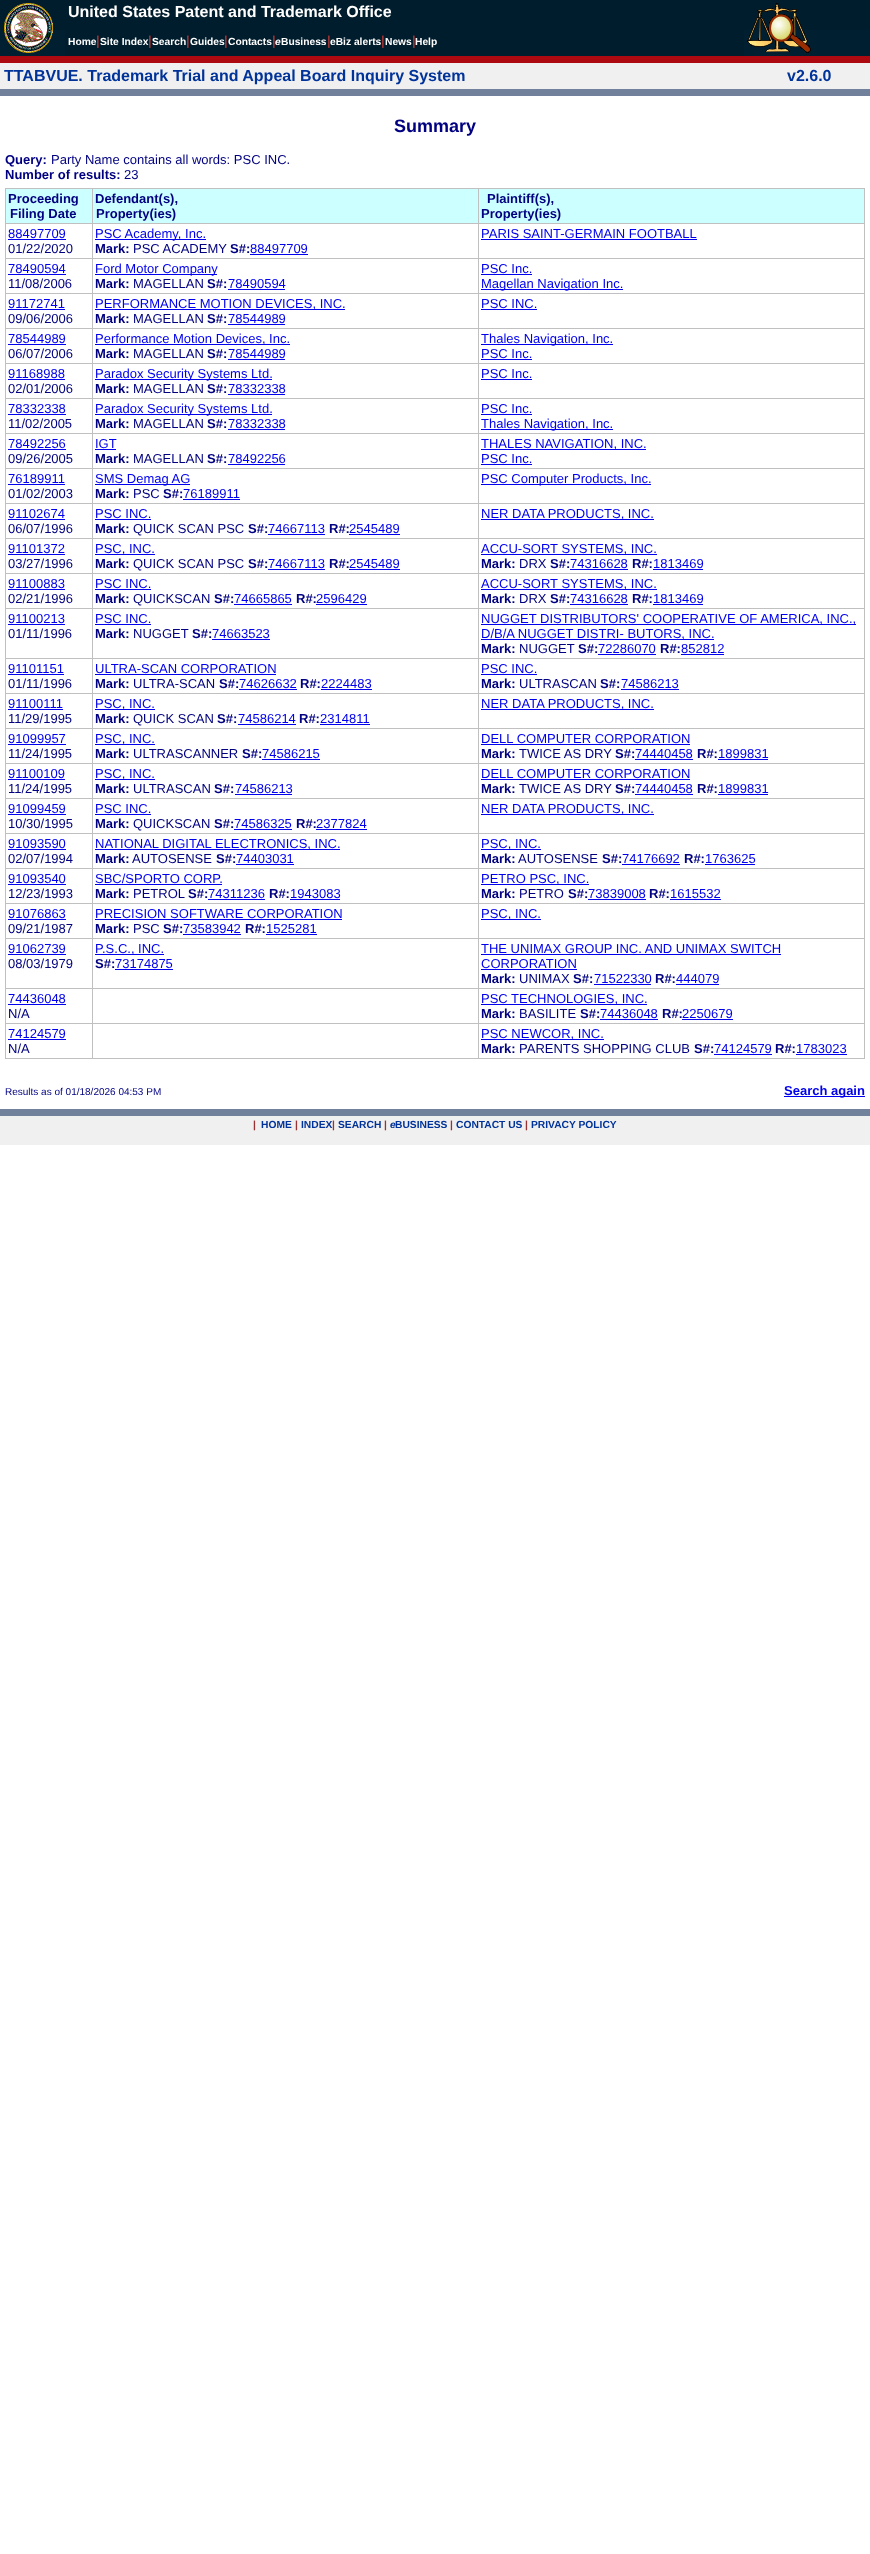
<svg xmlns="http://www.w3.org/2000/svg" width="870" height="2554">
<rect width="100%" height="100%" fill="#fff"/>
<rect width="870" height="30" fill="#001d2d"/>
<rect y="30" width="870" height="26" fill="#002032"/>
<image x="4" y="3" width="49" height="50" href="media/1.png"/>
<text x="68" y="17" style="font-family:Liberation Sans;font-size:16px;font-weight:bold;fill:#fff">United States Patent and Trademark Office</text>
<image x="747" y="3" width="64" height="50" href="media/2.png"/>
<rect x="65" y="30" width="679" height="26" fill="#001d2d"/>
<text x="68" y="45" style="font-family:Liberation Sans;font-size:10.25px;font-weight:bold;fill:#fff">Home</text>
<text x="96" y="45" style="font-family:Liberation Sans;font-size:13px;font-weight:bold;fill:#933">|</text>
<text x="100" y="45" style="font-family:Liberation Sans;font-size:10.25px;font-weight:bold;fill:#fff">Site Index</text>
<text x="148" y="45" style="font-family:Liberation Sans;font-size:13px;font-weight:bold;fill:#933">|</text>
<text x="152" y="45" style="font-family:Liberation Sans;font-size:10.25px;font-weight:bold;fill:#fff">Search</text>
<text x="186" y="45" style="font-family:Liberation Sans;font-size:13px;font-weight:bold;fill:#933">|</text>
<text x="190" y="45" style="font-family:Liberation Sans;font-size:10.25px;font-weight:bold;fill:#fff">Guides</text>
<text x="224" y="45" style="font-family:Liberation Sans;font-size:13px;font-weight:bold;fill:#933">|</text>
<text x="228" y="45" style="font-family:Liberation Sans;font-size:10.25px;font-weight:bold;fill:#fff">Contacts</text>
<text x="272" y="45" style="font-family:Liberation Sans;font-size:13px;font-weight:bold;fill:#933">|</text>
<text x="275" y="45" style="font-family:Liberation Sans;font-size:10.25px;font-weight:bold;font-style:italic;fill:#fff">e</text>
<text x="281" y="45" style="font-family:Liberation Sans;font-size:10.25px;font-weight:bold;fill:#fff">Business</text>
<text x="327" y="45" style="font-family:Liberation Sans;font-size:13px;font-weight:bold;fill:#933">|</text>
<text x="330" y="45" style="font-family:Liberation Sans;font-size:10.25px;font-weight:bold;fill:#fff">eBiz alerts</text>
<text x="381" y="45" style="font-family:Liberation Sans;font-size:13px;font-weight:bold;fill:#933">|</text>
<text x="385" y="45" style="font-family:Liberation Sans;font-size:10.25px;font-weight:bold;fill:#fff">News</text>
<text x="412" y="45" style="font-family:Liberation Sans;font-size:13px;font-weight:bold;fill:#933">|</text>
<text x="415" y="45" style="font-family:Liberation Sans;font-size:10.25px;font-weight:bold;fill:#fff">Help</text>
<rect y="56" width="870" height="7" fill="#ac0911"/>
<rect y="63" width="870" height="26" fill="#f0f0f0"/>
<text x="4" y="81" style="font-family:Liberation Sans;font-size:16px;font-weight:bold;fill:#039">TTABVUE. Trademark Trial and Appeal Board Inquiry System</text>
<text x="787" y="81" style="font-family:Liberation Sans;font-size:16px;font-weight:bold;fill:#039">v2.6.0</text>
<rect y="89" width="870" height="7" fill="#71819b"/>
<text x="394" y="132" style="font-family:Liberation Sans;font-size:18px;font-weight:bold;fill:#000080">Summary</text>
<text x="5" y="164" style="font-family:Liberation Sans;font-size:13px;font-weight:bold;fill:#000080">Query:</text>
<text x="51" y="164" style="font-family:Liberation Sans;font-size:13px;fill:#000080">Party Name contains all words: PSC INC.</text>
<text x="5" y="179" style="font-family:Liberation Sans;font-size:13px;font-weight:bold;fill:#000080">Number of results:</text>
<text x="124" y="179" style="font-family:Liberation Sans;font-size:13px;fill:#000080">23</text>
<rect x="5" y="188" width="860" height="871" fill="#c0c0c0"/>
<rect x="6" y="189" width="86" height="34" fill="#cff"/>
<text x="8" y="203" style="font-family:Liberation Sans;font-size:13px;font-weight:bold;fill:#000080">Proceeding</text>
<text x="10" y="218" style="font-family:Liberation Sans;font-size:13px;font-weight:bold;fill:#000080">Filing Date</text>
<rect x="93" y="189" width="385" height="34" fill="#cff"/>
<text x="95" y="203" style="font-family:Liberation Sans;font-size:13px;font-weight:bold;fill:#000080">Defendant(s),</text>
<text x="96" y="218" style="font-family:Liberation Sans;font-size:13px;font-weight:bold;fill:#000080">Property(ies)</text>
<rect x="479" y="189" width="385" height="34" fill="#cff"/>
<text x="487" y="203" style="font-family:Liberation Sans;font-size:13px;font-weight:bold;fill:#000080">Plaintiff(s),</text>
<text x="481" y="218" style="font-family:Liberation Sans;font-size:13px;font-weight:bold;fill:#000080">Property(ies)</text>
<rect x="6" y="224" width="86" height="34" fill="#fff"/>
<text x="8" y="238" style="font-family:Liberation Sans;font-size:13px;fill:#00e">88497709</text>
<rect x="8" y="239" width="58" height="1" fill="#00e"/>
<text x="8" y="253" style="font-family:Liberation Sans;font-size:13px;fill:#000080">01/22/2020</text>
<rect x="93" y="224" width="385" height="34" fill="#fff"/>
<rect x="95" y="239" width="111" height="1" fill="#00e"/>
<text x="95" y="238" style="font-family:Liberation Sans;font-size:13px;fill:#00e">PSC Academy, Inc.</text>
<text x="95" y="253" style="font-family:Liberation Sans;font-size:13px;font-weight:bold;fill:#000080">Mark:</text>
<text x="133" y="253" style="font-family:Liberation Sans;font-size:13px;fill:#000080">PSC ACADEMY</text>
<text x="230" y="253" style="font-family:Liberation Sans;font-size:13px;font-weight:bold;fill:#000080">S#:</text>
<rect x="250" y="254" width="58" height="1" fill="#00e"/>
<text x="250" y="253" style="font-family:Liberation Sans;font-size:13px;fill:#00e">88497709</text>
<rect x="479" y="224" width="385" height="34" fill="#fff"/>
<text x="481" y="238" style="font-family:Liberation Sans;font-size:13px;fill:#00e">PARIS SAINT-GERMAIN FOOTBALL</text>
<rect x="481" y="239" width="216" height="1" fill="#00e"/>
<rect x="6" y="259" width="86" height="34" fill="#fff"/>
<text x="8" y="273" style="font-family:Liberation Sans;font-size:13px;fill:#00e">78490594</text>
<rect x="8" y="274" width="58" height="1" fill="#00e"/>
<text x="8" y="288" style="font-family:Liberation Sans;font-size:13px;fill:#000080">11/08/2006</text>
<rect x="93" y="259" width="385" height="34" fill="#fff"/>
<rect x="95" y="274" width="122" height="1" fill="#00e"/>
<text x="95" y="273" style="font-family:Liberation Sans;font-size:13px;fill:#00e">Ford Motor Company</text>
<text x="95" y="288" style="font-family:Liberation Sans;font-size:13px;font-weight:bold;fill:#000080">Mark:</text>
<text x="133" y="288" style="font-family:Liberation Sans;font-size:13px;fill:#000080">MAGELLAN</text>
<text x="207" y="288" style="font-family:Liberation Sans;font-size:13px;font-weight:bold;fill:#000080">S#:</text>
<text x="228" y="288" style="font-family:Liberation Sans;font-size:13px;fill:#00e">78490594</text>
<rect x="228" y="289" width="57" height="1" fill="#00e"/>
<rect x="479" y="259" width="385" height="34" fill="#fff"/>
<text x="481" y="273" style="font-family:Liberation Sans;font-size:13px;fill:#00e">PSC Inc.</text>
<rect x="481" y="274" width="51" height="1" fill="#00e"/>
<rect x="481" y="289" width="142" height="1" fill="#00e"/>
<text x="481" y="288" style="font-family:Liberation Sans;font-size:13px;fill:#00e">Magellan Navigation Inc.</text>
<rect x="6" y="294" width="86" height="34" fill="#fff"/>
<text x="8" y="308" style="font-family:Liberation Sans;font-size:13px;fill:#00e">91172741</text>
<rect x="8" y="309" width="57" height="1" fill="#00e"/>
<text x="8" y="323" style="font-family:Liberation Sans;font-size:13px;fill:#000080">09/06/2006</text>
<rect x="93" y="294" width="385" height="34" fill="#fff"/>
<rect x="95" y="309" width="250" height="1" fill="#00e"/>
<text x="95" y="308" style="font-family:Liberation Sans;font-size:13px;fill:#00e">PERFORMANCE MOTION DEVICES, INC.</text>
<text x="95" y="323" style="font-family:Liberation Sans;font-size:13px;font-weight:bold;fill:#000080">Mark:</text>
<text x="133" y="323" style="font-family:Liberation Sans;font-size:13px;fill:#000080">MAGELLAN</text>
<text x="207" y="323" style="font-family:Liberation Sans;font-size:13px;font-weight:bold;fill:#000080">S#:</text>
<text x="228" y="323" style="font-family:Liberation Sans;font-size:13px;fill:#00e">78544989</text>
<rect x="228" y="324" width="57" height="1" fill="#00e"/>
<rect x="479" y="294" width="385" height="34" fill="#fff"/>
<text x="481" y="308" style="font-family:Liberation Sans;font-size:13px;fill:#00e">PSC INC.</text>
<rect x="481" y="309" width="56" height="1" fill="#00e"/>
<rect x="6" y="329" width="86" height="34" fill="#fff"/>
<text x="8" y="343" style="font-family:Liberation Sans;font-size:13px;fill:#00e">78544989</text>
<rect x="8" y="344" width="58" height="1" fill="#00e"/>
<text x="8" y="358" style="font-family:Liberation Sans;font-size:13px;fill:#000080">06/07/2006</text>
<rect x="93" y="329" width="385" height="34" fill="#fff"/>
<rect x="95" y="344" width="195" height="1" fill="#00e"/>
<text x="95" y="343" style="font-family:Liberation Sans;font-size:13px;fill:#00e">Performance Motion Devices, Inc.</text>
<text x="95" y="358" style="font-family:Liberation Sans;font-size:13px;font-weight:bold;fill:#000080">Mark:</text>
<text x="133" y="358" style="font-family:Liberation Sans;font-size:13px;fill:#000080">MAGELLAN</text>
<text x="207" y="358" style="font-family:Liberation Sans;font-size:13px;font-weight:bold;fill:#000080">S#:</text>
<text x="228" y="358" style="font-family:Liberation Sans;font-size:13px;fill:#00e">78544989</text>
<rect x="228" y="359" width="57" height="1" fill="#00e"/>
<rect x="479" y="329" width="385" height="34" fill="#fff"/>
<rect x="481" y="344" width="132" height="1" fill="#00e"/>
<text x="481" y="343" style="font-family:Liberation Sans;font-size:13px;fill:#00e">Thales Navigation, Inc.</text>
<text x="481" y="358" style="font-family:Liberation Sans;font-size:13px;fill:#00e">PSC Inc.</text>
<rect x="481" y="359" width="51" height="1" fill="#00e"/>
<rect x="6" y="364" width="86" height="34" fill="#fff"/>
<text x="8" y="378" style="font-family:Liberation Sans;font-size:13px;fill:#00e">91168988</text>
<rect x="8" y="379" width="57" height="1" fill="#00e"/>
<text x="8" y="393" style="font-family:Liberation Sans;font-size:13px;fill:#000080">02/01/2006</text>
<rect x="93" y="364" width="385" height="34" fill="#fff"/>
<rect x="95" y="379" width="177" height="1" fill="#00e"/>
<text x="95" y="378" style="font-family:Liberation Sans;font-size:13px;fill:#00e">Paradox Security Systems Ltd.</text>
<text x="95" y="393" style="font-family:Liberation Sans;font-size:13px;font-weight:bold;fill:#000080">Mark:</text>
<text x="133" y="393" style="font-family:Liberation Sans;font-size:13px;fill:#000080">MAGELLAN</text>
<text x="207" y="393" style="font-family:Liberation Sans;font-size:13px;font-weight:bold;fill:#000080">S#:</text>
<text x="228" y="393" style="font-family:Liberation Sans;font-size:13px;fill:#00e">78332338</text>
<rect x="228" y="394" width="57" height="1" fill="#00e"/>
<rect x="479" y="364" width="385" height="34" fill="#fff"/>
<text x="481" y="378" style="font-family:Liberation Sans;font-size:13px;fill:#00e">PSC Inc.</text>
<rect x="481" y="379" width="51" height="1" fill="#00e"/>
<rect x="6" y="399" width="86" height="34" fill="#fff"/>
<text x="8" y="413" style="font-family:Liberation Sans;font-size:13px;fill:#00e">78332338</text>
<rect x="8" y="414" width="58" height="1" fill="#00e"/>
<text x="8" y="428" style="font-family:Liberation Sans;font-size:13px;fill:#000080">11/02/2005</text>
<rect x="93" y="399" width="385" height="34" fill="#fff"/>
<rect x="95" y="414" width="177" height="1" fill="#00e"/>
<text x="95" y="413" style="font-family:Liberation Sans;font-size:13px;fill:#00e">Paradox Security Systems Ltd.</text>
<text x="95" y="428" style="font-family:Liberation Sans;font-size:13px;font-weight:bold;fill:#000080">Mark:</text>
<text x="133" y="428" style="font-family:Liberation Sans;font-size:13px;fill:#000080">MAGELLAN</text>
<text x="207" y="428" style="font-family:Liberation Sans;font-size:13px;font-weight:bold;fill:#000080">S#:</text>
<text x="228" y="428" style="font-family:Liberation Sans;font-size:13px;fill:#00e">78332338</text>
<rect x="228" y="429" width="57" height="1" fill="#00e"/>
<rect x="479" y="399" width="385" height="34" fill="#fff"/>
<text x="481" y="413" style="font-family:Liberation Sans;font-size:13px;fill:#00e">PSC Inc.</text>
<rect x="481" y="414" width="51" height="1" fill="#00e"/>
<rect x="481" y="429" width="132" height="1" fill="#00e"/>
<text x="481" y="428" style="font-family:Liberation Sans;font-size:13px;fill:#00e">Thales Navigation, Inc.</text>
<rect x="6" y="434" width="86" height="34" fill="#fff"/>
<text x="8" y="448" style="font-family:Liberation Sans;font-size:13px;fill:#00e">78492256</text>
<rect x="8" y="449" width="58" height="1" fill="#00e"/>
<text x="8" y="463" style="font-family:Liberation Sans;font-size:13px;fill:#000080">09/26/2005</text>
<rect x="93" y="434" width="385" height="34" fill="#fff"/>
<text x="95" y="448" style="font-family:Liberation Sans;font-size:13px;fill:#00e">IGT</text>
<rect x="95" y="449" width="21" height="1" fill="#00e"/>
<text x="95" y="463" style="font-family:Liberation Sans;font-size:13px;font-weight:bold;fill:#000080">Mark:</text>
<text x="133" y="463" style="font-family:Liberation Sans;font-size:13px;fill:#000080">MAGELLAN</text>
<text x="207" y="463" style="font-family:Liberation Sans;font-size:13px;font-weight:bold;fill:#000080">S#:</text>
<text x="228" y="463" style="font-family:Liberation Sans;font-size:13px;fill:#00e">78492256</text>
<rect x="228" y="464" width="57" height="1" fill="#00e"/>
<rect x="479" y="434" width="385" height="34" fill="#fff"/>
<rect x="481" y="449" width="165" height="1" fill="#00e"/>
<text x="481" y="448" style="font-family:Liberation Sans;font-size:13px;fill:#00e">THALES NAVIGATION, INC.</text>
<text x="481" y="463" style="font-family:Liberation Sans;font-size:13px;fill:#00e">PSC Inc.</text>
<rect x="481" y="464" width="51" height="1" fill="#00e"/>
<rect x="6" y="469" width="86" height="34" fill="#fff"/>
<text x="8" y="483" style="font-family:Liberation Sans;font-size:13px;fill:#00e">76189911</text>
<rect x="8" y="484" width="57" height="1" fill="#00e"/>
<text x="8" y="498" style="font-family:Liberation Sans;font-size:13px;fill:#000080">01/02/2003</text>
<rect x="93" y="469" width="385" height="34" fill="#fff"/>
<rect x="95" y="484" width="95" height="1" fill="#00e"/>
<text x="95" y="483" style="font-family:Liberation Sans;font-size:13px;fill:#00e">SMS Demag AG</text>
<text x="95" y="498" style="font-family:Liberation Sans;font-size:13px;font-weight:bold;fill:#000080">Mark:</text>
<text x="133" y="498" style="font-family:Liberation Sans;font-size:13px;fill:#000080">PSC</text>
<text x="163" y="498" style="font-family:Liberation Sans;font-size:13px;font-weight:bold;fill:#000080">S#:</text>
<rect x="183" y="499" width="57" height="1" fill="#00e"/>
<text x="183" y="498" style="font-family:Liberation Sans;font-size:13px;fill:#00e">76189911</text>
<rect x="479" y="469" width="385" height="34" fill="#fff"/>
<rect x="481" y="484" width="170" height="1" fill="#00e"/>
<text x="481" y="483" style="font-family:Liberation Sans;font-size:13px;fill:#00e">PSC Computer Products, Inc.</text>
<rect x="6" y="504" width="86" height="34" fill="#fff"/>
<text x="8" y="518" style="font-family:Liberation Sans;font-size:13px;fill:#00e">91102674</text>
<rect x="8" y="519" width="57" height="1" fill="#00e"/>
<text x="8" y="533" style="font-family:Liberation Sans;font-size:13px;fill:#000080">06/07/1996</text>
<rect x="93" y="504" width="385" height="34" fill="#fff"/>
<text x="95" y="518" style="font-family:Liberation Sans;font-size:13px;fill:#00e">PSC INC.</text>
<rect x="95" y="519" width="56" height="1" fill="#00e"/>
<text x="95" y="533" style="font-family:Liberation Sans;font-size:13px;font-weight:bold;fill:#000080">Mark:</text>
<text x="133" y="533" style="font-family:Liberation Sans;font-size:13px;fill:#000080">QUICK SCAN PSC</text>
<text x="248" y="533" style="font-family:Liberation Sans;font-size:13px;font-weight:bold;fill:#000080">S#:</text>
<text x="268" y="533" style="font-family:Liberation Sans;font-size:13px;fill:#00e">74667113</text>
<rect x="268" y="534" width="57" height="1" fill="#00e"/>
<text x="329" y="533" style="font-family:Liberation Sans;font-size:13px;font-weight:bold;fill:#000080">R#:</text>
<rect x="349" y="534" width="51" height="1" fill="#00e"/>
<text x="349" y="533" style="font-family:Liberation Sans;font-size:13px;fill:#00e">2545489</text>
<rect x="479" y="504" width="385" height="34" fill="#fff"/>
<rect x="481" y="519" width="173" height="1" fill="#00e"/>
<text x="481" y="518" style="font-family:Liberation Sans;font-size:13px;fill:#00e">NER DATA PRODUCTS, INC.</text>
<rect x="6" y="539" width="86" height="34" fill="#fff"/>
<text x="8" y="553" style="font-family:Liberation Sans;font-size:13px;fill:#00e">91101372</text>
<rect x="8" y="554" width="57" height="1" fill="#00e"/>
<text x="8" y="568" style="font-family:Liberation Sans;font-size:13px;fill:#000080">03/27/1996</text>
<rect x="93" y="539" width="385" height="34" fill="#fff"/>
<rect x="95" y="554" width="60" height="1" fill="#00e"/>
<text x="95" y="553" style="font-family:Liberation Sans;font-size:13px;fill:#00e">PSC, INC.</text>
<text x="95" y="568" style="font-family:Liberation Sans;font-size:13px;font-weight:bold;fill:#000080">Mark:</text>
<text x="133" y="568" style="font-family:Liberation Sans;font-size:13px;fill:#000080">QUICK SCAN PSC</text>
<text x="248" y="568" style="font-family:Liberation Sans;font-size:13px;font-weight:bold;fill:#000080">S#:</text>
<text x="268" y="568" style="font-family:Liberation Sans;font-size:13px;fill:#00e">74667113</text>
<rect x="268" y="569" width="57" height="1" fill="#00e"/>
<text x="329" y="568" style="font-family:Liberation Sans;font-size:13px;font-weight:bold;fill:#000080">R#:</text>
<rect x="349" y="569" width="51" height="1" fill="#00e"/>
<text x="349" y="568" style="font-family:Liberation Sans;font-size:13px;fill:#00e">2545489</text>
<rect x="479" y="539" width="385" height="34" fill="#fff"/>
<rect x="481" y="554" width="176" height="1" fill="#00e"/>
<text x="481" y="553" style="font-family:Liberation Sans;font-size:13px;fill:#00e">ACCU-SORT SYSTEMS, INC.</text>
<text x="481" y="568" style="font-family:Liberation Sans;font-size:13px;font-weight:bold;fill:#000080">Mark:</text>
<text x="519" y="568" style="font-family:Liberation Sans;font-size:13px;fill:#000080">DRX</text>
<text x="550" y="568" style="font-family:Liberation Sans;font-size:13px;font-weight:bold;fill:#000080">S#:</text>
<rect x="570" y="569" width="58" height="1" fill="#00e"/>
<text x="570" y="568" style="font-family:Liberation Sans;font-size:13px;fill:#00e">74316628</text>
<text x="632" y="568" style="font-family:Liberation Sans;font-size:13px;font-weight:bold;fill:#000080">R#:</text>
<text x="653" y="568" style="font-family:Liberation Sans;font-size:13px;fill:#00e">1813469</text>
<rect x="653" y="569" width="50" height="1" fill="#00e"/>
<rect x="6" y="574" width="86" height="34" fill="#fff"/>
<text x="8" y="588" style="font-family:Liberation Sans;font-size:13px;fill:#00e">91100883</text>
<rect x="8" y="589" width="57" height="1" fill="#00e"/>
<text x="8" y="603" style="font-family:Liberation Sans;font-size:13px;fill:#000080">02/21/1996</text>
<rect x="93" y="574" width="385" height="34" fill="#fff"/>
<text x="95" y="588" style="font-family:Liberation Sans;font-size:13px;fill:#00e">PSC INC.</text>
<rect x="95" y="589" width="56" height="1" fill="#00e"/>
<text x="95" y="603" style="font-family:Liberation Sans;font-size:13px;font-weight:bold;fill:#000080">Mark:</text>
<text x="133" y="603" style="font-family:Liberation Sans;font-size:13px;fill:#000080">QUICKSCAN</text>
<text x="214" y="603" style="font-family:Liberation Sans;font-size:13px;font-weight:bold;fill:#000080">S#:</text>
<text x="234" y="603" style="font-family:Liberation Sans;font-size:13px;fill:#00e">74665865</text>
<rect x="234" y="604" width="58" height="1" fill="#00e"/>
<text x="296" y="603" style="font-family:Liberation Sans;font-size:13px;font-weight:bold;fill:#000080">R#:</text>
<rect x="316" y="604" width="51" height="1" fill="#00e"/>
<text x="316" y="603" style="font-family:Liberation Sans;font-size:13px;fill:#00e">2596429</text>
<rect x="479" y="574" width="385" height="34" fill="#fff"/>
<rect x="481" y="589" width="176" height="1" fill="#00e"/>
<text x="481" y="588" style="font-family:Liberation Sans;font-size:13px;fill:#00e">ACCU-SORT SYSTEMS, INC.</text>
<text x="481" y="603" style="font-family:Liberation Sans;font-size:13px;font-weight:bold;fill:#000080">Mark:</text>
<text x="519" y="603" style="font-family:Liberation Sans;font-size:13px;fill:#000080">DRX</text>
<text x="550" y="603" style="font-family:Liberation Sans;font-size:13px;font-weight:bold;fill:#000080">S#:</text>
<rect x="570" y="604" width="58" height="1" fill="#00e"/>
<text x="570" y="603" style="font-family:Liberation Sans;font-size:13px;fill:#00e">74316628</text>
<text x="632" y="603" style="font-family:Liberation Sans;font-size:13px;font-weight:bold;fill:#000080">R#:</text>
<text x="653" y="603" style="font-family:Liberation Sans;font-size:13px;fill:#00e">1813469</text>
<rect x="653" y="604" width="50" height="1" fill="#00e"/>
<rect x="6" y="609" width="86" height="49" fill="#fff"/>
<text x="8" y="623" style="font-family:Liberation Sans;font-size:13px;fill:#00e">91100213</text>
<rect x="8" y="624" width="57" height="1" fill="#00e"/>
<text x="8" y="638" style="font-family:Liberation Sans;font-size:13px;fill:#000080">01/11/1996</text>
<rect x="93" y="609" width="385" height="49" fill="#fff"/>
<text x="95" y="623" style="font-family:Liberation Sans;font-size:13px;fill:#00e">PSC INC.</text>
<rect x="95" y="624" width="56" height="1" fill="#00e"/>
<text x="95" y="638" style="font-family:Liberation Sans;font-size:13px;font-weight:bold;fill:#000080">Mark:</text>
<text x="133" y="638" style="font-family:Liberation Sans;font-size:13px;fill:#000080">NUGGET</text>
<text x="192" y="638" style="font-family:Liberation Sans;font-size:13px;font-weight:bold;fill:#000080">S#:</text>
<text x="212" y="638" style="font-family:Liberation Sans;font-size:13px;fill:#00e">74663523</text>
<rect x="212" y="639" width="58" height="1" fill="#00e"/>
<rect x="479" y="609" width="385" height="49" fill="#fff"/>
<rect x="481" y="624" width="375" height="1" fill="#00e"/>
<text x="481" y="623" style="font-family:Liberation Sans;font-size:13px;fill:#00e">NUGGET DISTRIBUTORS' COOPERATIVE OF AMERICA, INC.,</text>
<rect x="481" y="639" width="233" height="1" fill="#00e"/>
<text x="481" y="638" style="font-family:Liberation Sans;font-size:13px;fill:#00e">D/B/A NUGGET DISTRI- BUTORS, INC.</text>
<text x="481" y="653" style="font-family:Liberation Sans;font-size:13px;font-weight:bold;fill:#000080">Mark:</text>
<text x="519" y="653" style="font-family:Liberation Sans;font-size:13px;fill:#000080">NUGGET</text>
<text x="578" y="653" style="font-family:Liberation Sans;font-size:13px;font-weight:bold;fill:#000080">S#:</text>
<rect x="598" y="654" width="58" height="1" fill="#00e"/>
<text x="598" y="653" style="font-family:Liberation Sans;font-size:13px;fill:#00e">72286070</text>
<text x="660" y="653" style="font-family:Liberation Sans;font-size:13px;font-weight:bold;fill:#000080">R#:</text>
<text x="681" y="653" style="font-family:Liberation Sans;font-size:13px;fill:#00e">852812</text>
<rect x="681" y="654" width="43" height="1" fill="#00e"/>
<rect x="6" y="659" width="86" height="34" fill="#fff"/>
<text x="8" y="673" style="font-family:Liberation Sans;font-size:13px;fill:#00e">91101151</text>
<rect x="8" y="674" width="56" height="1" fill="#00e"/>
<text x="8" y="688" style="font-family:Liberation Sans;font-size:13px;fill:#000080">01/11/1996</text>
<rect x="93" y="659" width="385" height="34" fill="#fff"/>
<text x="95" y="673" style="font-family:Liberation Sans;font-size:13px;fill:#00e">ULTRA-SCAN CORPORATION</text>
<rect x="95" y="674" width="181" height="1" fill="#00e"/>
<text x="95" y="688" style="font-family:Liberation Sans;font-size:13px;font-weight:bold;fill:#000080">Mark:</text>
<text x="133" y="688" style="font-family:Liberation Sans;font-size:13px;fill:#000080">ULTRA-SCAN</text>
<text x="219" y="688" style="font-family:Liberation Sans;font-size:13px;font-weight:bold;fill:#000080">S#:</text>
<text x="239" y="688" style="font-family:Liberation Sans;font-size:13px;fill:#00e">74626632</text>
<rect x="239" y="689" width="58" height="1" fill="#00e"/>
<text x="300" y="688" style="font-family:Liberation Sans;font-size:13px;font-weight:bold;fill:#000080">R#:</text>
<rect x="321" y="689" width="51" height="1" fill="#00e"/>
<text x="321" y="688" style="font-family:Liberation Sans;font-size:13px;fill:#00e">2224483</text>
<rect x="479" y="659" width="385" height="34" fill="#fff"/>
<text x="481" y="673" style="font-family:Liberation Sans;font-size:13px;fill:#00e">PSC INC.</text>
<rect x="481" y="674" width="56" height="1" fill="#00e"/>
<text x="481" y="688" style="font-family:Liberation Sans;font-size:13px;font-weight:bold;fill:#000080">Mark:</text>
<text x="519" y="688" style="font-family:Liberation Sans;font-size:13px;fill:#000080">ULTRASCAN</text>
<text x="600" y="688" style="font-family:Liberation Sans;font-size:13px;font-weight:bold;fill:#000080">S#:</text>
<text x="621" y="688" style="font-family:Liberation Sans;font-size:13px;fill:#00e">74586213</text>
<rect x="621" y="689" width="58" height="1" fill="#00e"/>
<rect x="6" y="694" width="86" height="34" fill="#fff"/>
<text x="8" y="708" style="font-family:Liberation Sans;font-size:13px;fill:#00e">91100111</text>
<rect x="8" y="709" width="55" height="1" fill="#00e"/>
<text x="8" y="723" style="font-family:Liberation Sans;font-size:13px;fill:#000080">11/29/1995</text>
<rect x="93" y="694" width="385" height="34" fill="#fff"/>
<rect x="95" y="709" width="60" height="1" fill="#00e"/>
<text x="95" y="708" style="font-family:Liberation Sans;font-size:13px;fill:#00e">PSC, INC.</text>
<text x="95" y="723" style="font-family:Liberation Sans;font-size:13px;font-weight:bold;fill:#000080">Mark:</text>
<text x="133" y="723" style="font-family:Liberation Sans;font-size:13px;fill:#000080">QUICK SCAN</text>
<text x="217" y="723" style="font-family:Liberation Sans;font-size:13px;font-weight:bold;fill:#000080">S#:</text>
<text x="238" y="723" style="font-family:Liberation Sans;font-size:13px;fill:#00e">74586214</text>
<rect x="238" y="724" width="58" height="1" fill="#00e"/>
<text x="299" y="723" style="font-family:Liberation Sans;font-size:13px;font-weight:bold;fill:#000080">R#:</text>
<text x="320" y="723" style="font-family:Liberation Sans;font-size:13px;fill:#00e">2314811</text>
<rect x="320" y="724" width="50" height="1" fill="#00e"/>
<rect x="479" y="694" width="385" height="34" fill="#fff"/>
<rect x="481" y="709" width="173" height="1" fill="#00e"/>
<text x="481" y="708" style="font-family:Liberation Sans;font-size:13px;fill:#00e">NER DATA PRODUCTS, INC.</text>
<rect x="6" y="729" width="86" height="34" fill="#fff"/>
<text x="8" y="743" style="font-family:Liberation Sans;font-size:13px;fill:#00e">91099957</text>
<rect x="8" y="744" width="58" height="1" fill="#00e"/>
<text x="8" y="758" style="font-family:Liberation Sans;font-size:13px;fill:#000080">11/24/1995</text>
<rect x="93" y="729" width="385" height="34" fill="#fff"/>
<rect x="95" y="744" width="60" height="1" fill="#00e"/>
<text x="95" y="743" style="font-family:Liberation Sans;font-size:13px;fill:#00e">PSC, INC.</text>
<text x="95" y="758" style="font-family:Liberation Sans;font-size:13px;font-weight:bold;fill:#000080">Mark:</text>
<text x="133" y="758" style="font-family:Liberation Sans;font-size:13px;fill:#000080">ULTRASCANNER</text>
<text x="242" y="758" style="font-family:Liberation Sans;font-size:13px;font-weight:bold;fill:#000080">S#:</text>
<text x="262" y="758" style="font-family:Liberation Sans;font-size:13px;fill:#00e">74586215</text>
<rect x="262" y="759" width="58" height="1" fill="#00e"/>
<rect x="479" y="729" width="385" height="34" fill="#fff"/>
<text x="481" y="743" style="font-family:Liberation Sans;font-size:13px;fill:#00e">DELL COMPUTER CORPORATION</text>
<rect x="481" y="744" width="209" height="1" fill="#00e"/>
<text x="481" y="758" style="font-family:Liberation Sans;font-size:13px;font-weight:bold;fill:#000080">Mark:</text>
<text x="519" y="758" style="font-family:Liberation Sans;font-size:13px;fill:#000080">TWICE AS DRY</text>
<text x="615" y="758" style="font-family:Liberation Sans;font-size:13px;font-weight:bold;fill:#000080">S#:</text>
<rect x="635" y="759" width="58" height="1" fill="#00e"/>
<text x="635" y="758" style="font-family:Liberation Sans;font-size:13px;fill:#00e">74440458</text>
<text x="697" y="758" style="font-family:Liberation Sans;font-size:13px;font-weight:bold;fill:#000080">R#:</text>
<text x="718" y="758" style="font-family:Liberation Sans;font-size:13px;fill:#00e">1899831</text>
<rect x="718" y="759" width="50" height="1" fill="#00e"/>
<rect x="6" y="764" width="86" height="34" fill="#fff"/>
<text x="8" y="778" style="font-family:Liberation Sans;font-size:13px;fill:#00e">91100109</text>
<rect x="8" y="779" width="57" height="1" fill="#00e"/>
<text x="8" y="793" style="font-family:Liberation Sans;font-size:13px;fill:#000080">11/24/1995</text>
<rect x="93" y="764" width="385" height="34" fill="#fff"/>
<rect x="95" y="779" width="60" height="1" fill="#00e"/>
<text x="95" y="778" style="font-family:Liberation Sans;font-size:13px;fill:#00e">PSC, INC.</text>
<text x="95" y="793" style="font-family:Liberation Sans;font-size:13px;font-weight:bold;fill:#000080">Mark:</text>
<text x="133" y="793" style="font-family:Liberation Sans;font-size:13px;fill:#000080">ULTRASCAN</text>
<text x="214" y="793" style="font-family:Liberation Sans;font-size:13px;font-weight:bold;fill:#000080">S#:</text>
<text x="235" y="793" style="font-family:Liberation Sans;font-size:13px;fill:#00e">74586213</text>
<rect x="235" y="794" width="57" height="1" fill="#00e"/>
<rect x="479" y="764" width="385" height="34" fill="#fff"/>
<text x="481" y="778" style="font-family:Liberation Sans;font-size:13px;fill:#00e">DELL COMPUTER CORPORATION</text>
<rect x="481" y="779" width="209" height="1" fill="#00e"/>
<text x="481" y="793" style="font-family:Liberation Sans;font-size:13px;font-weight:bold;fill:#000080">Mark:</text>
<text x="519" y="793" style="font-family:Liberation Sans;font-size:13px;fill:#000080">TWICE AS DRY</text>
<text x="615" y="793" style="font-family:Liberation Sans;font-size:13px;font-weight:bold;fill:#000080">S#:</text>
<rect x="635" y="794" width="58" height="1" fill="#00e"/>
<text x="635" y="793" style="font-family:Liberation Sans;font-size:13px;fill:#00e">74440458</text>
<text x="697" y="793" style="font-family:Liberation Sans;font-size:13px;font-weight:bold;fill:#000080">R#:</text>
<text x="718" y="793" style="font-family:Liberation Sans;font-size:13px;fill:#00e">1899831</text>
<rect x="718" y="794" width="50" height="1" fill="#00e"/>
<rect x="6" y="799" width="86" height="34" fill="#fff"/>
<text x="8" y="813" style="font-family:Liberation Sans;font-size:13px;fill:#00e">91099459</text>
<rect x="8" y="814" width="58" height="1" fill="#00e"/>
<text x="8" y="828" style="font-family:Liberation Sans;font-size:13px;fill:#000080">10/30/1995</text>
<rect x="93" y="799" width="385" height="34" fill="#fff"/>
<text x="95" y="813" style="font-family:Liberation Sans;font-size:13px;fill:#00e">PSC INC.</text>
<rect x="95" y="814" width="56" height="1" fill="#00e"/>
<text x="95" y="828" style="font-family:Liberation Sans;font-size:13px;font-weight:bold;fill:#000080">Mark:</text>
<text x="133" y="828" style="font-family:Liberation Sans;font-size:13px;fill:#000080">QUICKSCAN</text>
<text x="214" y="828" style="font-family:Liberation Sans;font-size:13px;font-weight:bold;fill:#000080">S#:</text>
<text x="234" y="828" style="font-family:Liberation Sans;font-size:13px;fill:#00e">74586325</text>
<rect x="234" y="829" width="58" height="1" fill="#00e"/>
<text x="296" y="828" style="font-family:Liberation Sans;font-size:13px;font-weight:bold;fill:#000080">R#:</text>
<rect x="316" y="829" width="51" height="1" fill="#00e"/>
<text x="316" y="828" style="font-family:Liberation Sans;font-size:13px;fill:#00e">2377824</text>
<rect x="479" y="799" width="385" height="34" fill="#fff"/>
<rect x="481" y="814" width="173" height="1" fill="#00e"/>
<text x="481" y="813" style="font-family:Liberation Sans;font-size:13px;fill:#00e">NER DATA PRODUCTS, INC.</text>
<rect x="6" y="834" width="86" height="34" fill="#fff"/>
<text x="8" y="848" style="font-family:Liberation Sans;font-size:13px;fill:#00e">91093590</text>
<rect x="8" y="849" width="58" height="1" fill="#00e"/>
<text x="8" y="863" style="font-family:Liberation Sans;font-size:13px;fill:#000080">02/07/1994</text>
<rect x="93" y="834" width="385" height="34" fill="#fff"/>
<rect x="95" y="849" width="245" height="1" fill="#00e"/>
<text x="95" y="848" style="font-family:Liberation Sans;font-size:13px;fill:#00e">NATIONAL DIGITAL ELECTRONICS, INC.</text>
<text x="95" y="863" style="font-family:Liberation Sans;font-size:13px;font-weight:bold;fill:#000080">Mark:</text>
<text x="132" y="863" style="font-family:Liberation Sans;font-size:13px;fill:#000080">AUTOSENSE</text>
<text x="216" y="863" style="font-family:Liberation Sans;font-size:13px;font-weight:bold;fill:#000080">S#:</text>
<text x="236" y="863" style="font-family:Liberation Sans;font-size:13px;fill:#00e">74403031</text>
<rect x="236" y="864" width="58" height="1" fill="#00e"/>
<rect x="479" y="834" width="385" height="34" fill="#fff"/>
<rect x="481" y="849" width="60" height="1" fill="#00e"/>
<text x="481" y="848" style="font-family:Liberation Sans;font-size:13px;fill:#00e">PSC, INC.</text>
<text x="481" y="863" style="font-family:Liberation Sans;font-size:13px;font-weight:bold;fill:#000080">Mark:</text>
<text x="518" y="863" style="font-family:Liberation Sans;font-size:13px;fill:#000080">AUTOSENSE</text>
<text x="602" y="863" style="font-family:Liberation Sans;font-size:13px;font-weight:bold;fill:#000080">S#:</text>
<text x="622" y="863" style="font-family:Liberation Sans;font-size:13px;fill:#00e">74176692</text>
<rect x="622" y="864" width="58" height="1" fill="#00e"/>
<text x="684" y="863" style="font-family:Liberation Sans;font-size:13px;font-weight:bold;fill:#000080">R#:</text>
<text x="705" y="863" style="font-family:Liberation Sans;font-size:13px;fill:#00e">1763625</text>
<rect x="705" y="864" width="50" height="1" fill="#00e"/>
<rect x="6" y="869" width="86" height="34" fill="#fff"/>
<text x="8" y="883" style="font-family:Liberation Sans;font-size:13px;fill:#00e">91093540</text>
<rect x="8" y="884" width="58" height="1" fill="#00e"/>
<text x="8" y="898" style="font-family:Liberation Sans;font-size:13px;fill:#000080">12/23/1993</text>
<rect x="93" y="869" width="385" height="34" fill="#fff"/>
<text x="95" y="883" style="font-family:Liberation Sans;font-size:13px;fill:#00e">SBC/SPORTO CORP.</text>
<rect x="95" y="884" width="127" height="1" fill="#00e"/>
<text x="95" y="898" style="font-family:Liberation Sans;font-size:13px;font-weight:bold;fill:#000080">Mark:</text>
<text x="133" y="898" style="font-family:Liberation Sans;font-size:13px;fill:#000080">PETROL</text>
<text x="188" y="898" style="font-family:Liberation Sans;font-size:13px;font-weight:bold;fill:#000080">S#:</text>
<rect x="208" y="899" width="57" height="1" fill="#00e"/>
<text x="208" y="898" style="font-family:Liberation Sans;font-size:13px;fill:#00e">74311236</text>
<text x="269" y="898" style="font-family:Liberation Sans;font-size:13px;font-weight:bold;fill:#000080">R#:</text>
<text x="290" y="898" style="font-family:Liberation Sans;font-size:13px;fill:#00e">1943083</text>
<rect x="290" y="899" width="50" height="1" fill="#00e"/>
<rect x="479" y="869" width="385" height="34" fill="#fff"/>
<rect x="481" y="884" width="108" height="1" fill="#00e"/>
<text x="481" y="883" style="font-family:Liberation Sans;font-size:13px;fill:#00e">PETRO PSC, INC.</text>
<text x="481" y="898" style="font-family:Liberation Sans;font-size:13px;font-weight:bold;fill:#000080">Mark:</text>
<text x="519" y="898" style="font-family:Liberation Sans;font-size:13px;fill:#000080">PETRO</text>
<text x="568" y="898" style="font-family:Liberation Sans;font-size:13px;font-weight:bold;fill:#000080">S#:</text>
<text x="588" y="898" style="font-family:Liberation Sans;font-size:13px;fill:#00e">73839008</text>
<rect x="588" y="899" width="58" height="1" fill="#00e"/>
<text x="649" y="898" style="font-family:Liberation Sans;font-size:13px;font-weight:bold;fill:#000080">R#:</text>
<text x="670" y="898" style="font-family:Liberation Sans;font-size:13px;fill:#00e">1615532</text>
<rect x="670" y="899" width="51" height="1" fill="#00e"/>
<rect x="6" y="904" width="86" height="34" fill="#fff"/>
<text x="8" y="918" style="font-family:Liberation Sans;font-size:13px;fill:#00e">91076863</text>
<rect x="8" y="919" width="58" height="1" fill="#00e"/>
<text x="8" y="933" style="font-family:Liberation Sans;font-size:13px;fill:#000080">09/21/1987</text>
<rect x="93" y="904" width="385" height="34" fill="#fff"/>
<text x="95" y="918" style="font-family:Liberation Sans;font-size:13px;fill:#00e">PRECISION SOFTWARE CORPORATION</text>
<rect x="95" y="919" width="247" height="1" fill="#00e"/>
<text x="95" y="933" style="font-family:Liberation Sans;font-size:13px;font-weight:bold;fill:#000080">Mark:</text>
<text x="133" y="933" style="font-family:Liberation Sans;font-size:13px;fill:#000080">PSC</text>
<text x="163" y="933" style="font-family:Liberation Sans;font-size:13px;font-weight:bold;fill:#000080">S#:</text>
<rect x="183" y="934" width="58" height="1" fill="#00e"/>
<text x="183" y="933" style="font-family:Liberation Sans;font-size:13px;fill:#00e">73583942</text>
<text x="245" y="933" style="font-family:Liberation Sans;font-size:13px;font-weight:bold;fill:#000080">R#:</text>
<text x="266" y="933" style="font-family:Liberation Sans;font-size:13px;fill:#00e">1525281</text>
<rect x="266" y="934" width="51" height="1" fill="#00e"/>
<rect x="479" y="904" width="385" height="34" fill="#fff"/>
<rect x="481" y="919" width="60" height="1" fill="#00e"/>
<text x="481" y="918" style="font-family:Liberation Sans;font-size:13px;fill:#00e">PSC, INC.</text>
<rect x="6" y="939" width="86" height="49" fill="#fff"/>
<text x="8" y="953" style="font-family:Liberation Sans;font-size:13px;fill:#00e">91062739</text>
<rect x="8" y="954" width="58" height="1" fill="#00e"/>
<text x="8" y="968" style="font-family:Liberation Sans;font-size:13px;fill:#000080">08/03/1979</text>
<rect x="93" y="939" width="385" height="49" fill="#fff"/>
<rect x="95" y="954" width="69" height="1" fill="#00e"/>
<text x="95" y="953" style="font-family:Liberation Sans;font-size:13px;fill:#00e">P.S.C., INC.</text>
<text x="95" y="968" style="font-family:Liberation Sans;font-size:13px;font-weight:bold;fill:#000080">S#:</text>
<text x="115" y="968" style="font-family:Liberation Sans;font-size:13px;fill:#00e">73174875</text>
<rect x="115" y="969" width="58" height="1" fill="#00e"/>
<rect x="479" y="939" width="385" height="49" fill="#fff"/>
<text x="481" y="953" style="font-family:Liberation Sans;font-size:13px;fill:#00e">THE UNIMAX GROUP INC. AND UNIMAX SWITCH</text>
<rect x="481" y="954" width="300" height="1" fill="#00e"/>
<text x="481" y="968" style="font-family:Liberation Sans;font-size:13px;fill:#00e">CORPORATION</text>
<rect x="481" y="969" width="96" height="1" fill="#00e"/>
<text x="481" y="983" style="font-family:Liberation Sans;font-size:13px;font-weight:bold;fill:#000080">Mark:</text>
<text x="519" y="983" style="font-family:Liberation Sans;font-size:13px;fill:#000080">UNIMAX</text>
<text x="573" y="983" style="font-family:Liberation Sans;font-size:13px;font-weight:bold;fill:#000080">S#:</text>
<text x="594" y="983" style="font-family:Liberation Sans;font-size:13px;fill:#00e">71522330</text>
<rect x="594" y="984" width="57" height="1" fill="#00e"/>
<text x="655" y="983" style="font-family:Liberation Sans;font-size:13px;font-weight:bold;fill:#000080">R#:</text>
<text x="676" y="983" style="font-family:Liberation Sans;font-size:13px;fill:#00e">444079</text>
<rect x="676" y="984" width="43" height="1" fill="#00e"/>
<rect x="6" y="989" width="86" height="34" fill="#fff"/>
<text x="8" y="1003" style="font-family:Liberation Sans;font-size:13px;fill:#00e">74436048</text>
<rect x="8" y="1004" width="58" height="1" fill="#00e"/>
<text x="8" y="1018" style="font-family:Liberation Sans;font-size:13px;fill:#000080">N/A</text>
<rect x="93" y="989" width="385" height="34" fill="#fff"/>
<rect x="479" y="989" width="385" height="34" fill="#fff"/>
<rect x="481" y="1004" width="166" height="1" fill="#00e"/>
<text x="481" y="1003" style="font-family:Liberation Sans;font-size:13px;fill:#00e">PSC TECHNOLOGIES, INC.</text>
<text x="481" y="1018" style="font-family:Liberation Sans;font-size:13px;font-weight:bold;fill:#000080">Mark:</text>
<text x="519" y="1018" style="font-family:Liberation Sans;font-size:13px;fill:#000080">BASILITE</text>
<text x="580" y="1018" style="font-family:Liberation Sans;font-size:13px;font-weight:bold;fill:#000080">S#:</text>
<text x="600" y="1018" style="font-family:Liberation Sans;font-size:13px;fill:#00e">74436048</text>
<rect x="600" y="1019" width="58" height="1" fill="#00e"/>
<text x="662" y="1018" style="font-family:Liberation Sans;font-size:13px;font-weight:bold;fill:#000080">R#:</text>
<rect x="682" y="1019" width="51" height="1" fill="#00e"/>
<text x="682" y="1018" style="font-family:Liberation Sans;font-size:13px;fill:#00e">2250679</text>
<rect x="6" y="1024" width="86" height="34" fill="#fff"/>
<text x="8" y="1038" style="font-family:Liberation Sans;font-size:13px;fill:#00e">74124579</text>
<rect x="8" y="1039" width="58" height="1" fill="#00e"/>
<text x="8" y="1053" style="font-family:Liberation Sans;font-size:13px;fill:#000080">N/A</text>
<rect x="93" y="1024" width="385" height="34" fill="#fff"/>
<rect x="479" y="1024" width="385" height="34" fill="#fff"/>
<rect x="481" y="1039" width="123" height="1" fill="#00e"/>
<text x="481" y="1038" style="font-family:Liberation Sans;font-size:13px;fill:#00e">PSC NEWCOR, INC.</text>
<text x="481" y="1053" style="font-family:Liberation Sans;font-size:13px;font-weight:bold;fill:#000080">Mark:</text>
<text x="519" y="1053" style="font-family:Liberation Sans;font-size:13px;fill:#000080">PARENTS SHOPPING CLUB</text>
<text x="694" y="1053" style="font-family:Liberation Sans;font-size:13px;font-weight:bold;fill:#000080">S#:</text>
<text x="714" y="1053" style="font-family:Liberation Sans;font-size:13px;fill:#00e">74124579</text>
<rect x="714" y="1054" width="58" height="1" fill="#00e"/>
<text x="775" y="1053" style="font-family:Liberation Sans;font-size:13px;font-weight:bold;fill:#000080">R#:</text>
<rect x="796" y="1054" width="51" height="1" fill="#00e"/>
<text x="796" y="1053" style="font-family:Liberation Sans;font-size:13px;fill:#00e">1783023</text>
<text x="5" y="1095" style="font-family:Liberation Sans;font-size:10px;fill:#000080">Results as of 01/18/2026 04:53 PM</text>
<rect x="784" y="1096" width="81" height="1" fill="#00e"/>
<text x="784" y="1095" style="font-family:Liberation Sans;font-size:13px;font-weight:bold;fill:#00e">Search again</text>
<rect y="1109" width="870" height="7" fill="#71819b"/>
<rect y="1116" width="870" height="29" fill="#f0f0f0"/>
<text x="253" y="1128" style="font-family:Liberation Sans;font-size:10.25px;font-weight:bold;fill:#933">|</text>
<text x="261" y="1128" style="font-family:Liberation Sans;font-size:10.25px;font-weight:bold;fill:#039">HOME</text>
<text x="295" y="1128" style="font-family:Liberation Sans;font-size:10.25px;font-weight:bold;fill:#933">|</text>
<text x="301" y="1128" style="font-family:Liberation Sans;font-size:10.25px;font-weight:bold;fill:#039">INDEX</text>
<text x="332" y="1128" style="font-family:Liberation Sans;font-size:10.25px;font-weight:bold;fill:#933">|</text>
<text x="338" y="1128" style="font-family:Liberation Sans;font-size:10.25px;font-weight:bold;fill:#039">SEARCH</text>
<text x="384" y="1128" style="font-family:Liberation Sans;font-size:10.25px;font-weight:bold;fill:#933">|</text>
<text x="390" y="1128" style="font-family:Liberation Sans;font-size:10.25px;font-weight:bold;font-style:italic;fill:#039">e</text>
<text x="395" y="1128" style="font-family:Liberation Sans;font-size:10.25px;font-weight:bold;fill:#039">BUSINESS</text>
<text x="450" y="1128" style="font-family:Liberation Sans;font-size:10.25px;font-weight:bold;fill:#933">|</text>
<text x="456" y="1128" style="font-family:Liberation Sans;font-size:10.25px;font-weight:bold;fill:#039">CONTACT US</text>
<text x="525" y="1128" style="font-family:Liberation Sans;font-size:10.25px;font-weight:bold;fill:#933">|</text>
<text x="531" y="1128" style="font-family:Liberation Sans;font-size:10.25px;font-weight:bold;fill:#039">PRIVACY POLICY</text>
</svg>
